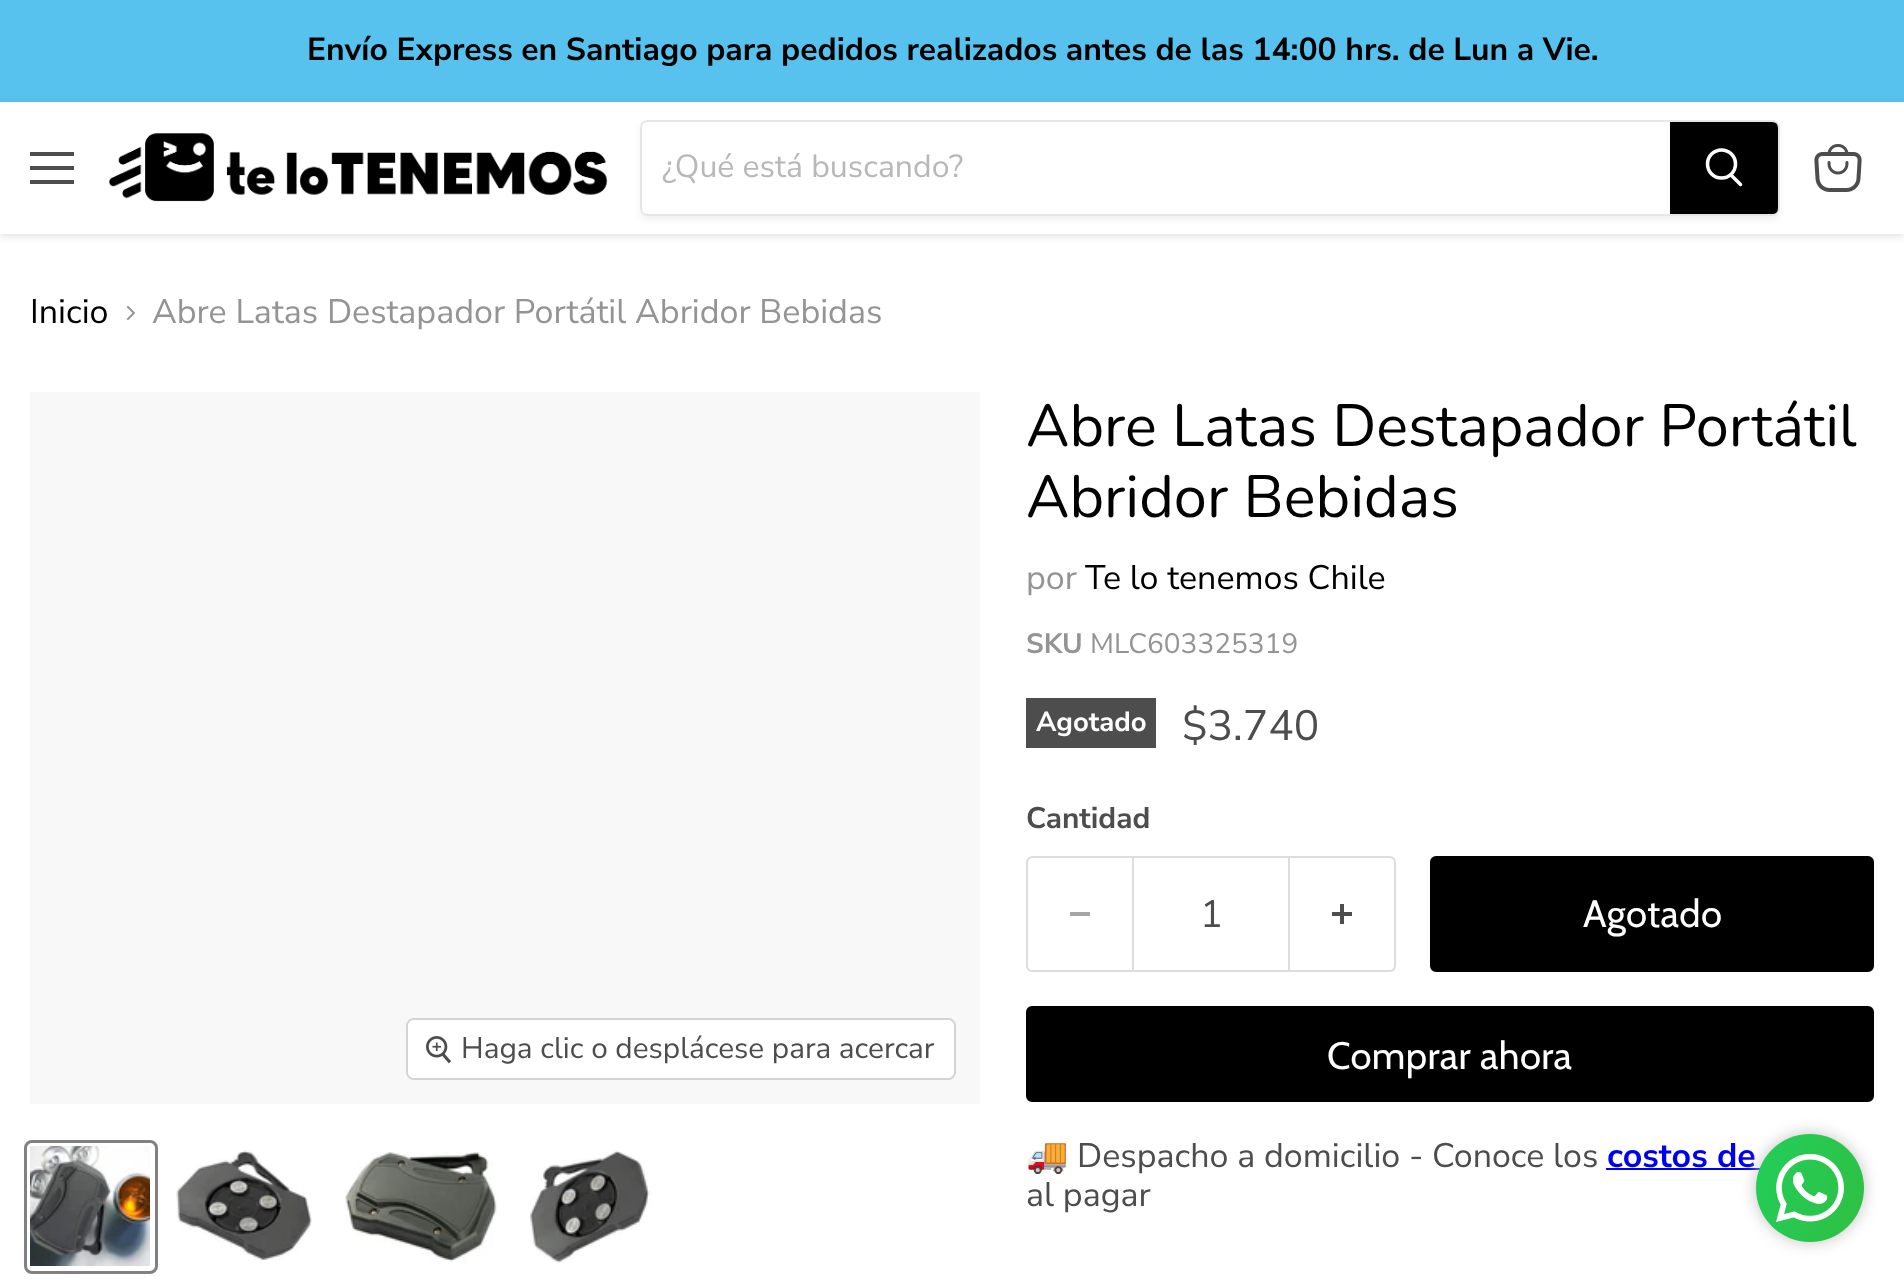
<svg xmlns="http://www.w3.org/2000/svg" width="1904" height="1281">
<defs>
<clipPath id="clip1"><path d="M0 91h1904v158h-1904zm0 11h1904v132h-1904z" clip-rule="evenodd"/></clipPath>
<clipPath id="clip2"><path d="M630 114h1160v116h-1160zm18 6h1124c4.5 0 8 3.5 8 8v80c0 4.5-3.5 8-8 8h-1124c-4.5 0-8-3.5-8-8v-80c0-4.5 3.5-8 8-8z" clip-rule="evenodd"/></clipPath>
<linearGradient id="g1" gradientUnits="userSpaceOnUse" x1="1745" y1="1161" x2="1875" y2="1215"><stop offset="0" stop-color="#22ce5a"/><stop offset="0" stop-color="#22ce5a"/><stop offset="1" stop-color="#30bf42"/></linearGradient>
</defs>
<rect width="100%" height="100%" fill="#fff"/>
<rect width="1904" height="102" fill="#56c2ed"/>
<text x="307" y="60" style="font-family:Nunito Sans;font-size:31.9px;font-weight:bold;fill:#000">Envío Express en Santiago para pedidos realizados antes de las 14:00 hrs. de Lun a Vie.</text>
<g clip-path="url(#clip1)">
<rect y="104" width="1904" height="132" fill="#80808040" filter="blur(4px)"/>
</g>
<rect x="30" y="152" width="44" height="4" fill="#4d4d4d"/>
<rect x="30" y="166" width="44" height="4" fill="#4d4d4d"/>
<rect x="30" y="180" width="44" height="4" fill="#4d4d4d"/>
<image x="109" y="133" width="499" height="69" href="media/1.png"/>
<g clip-path="url(#clip2)">
<rect x="640" y="124" width="1140" height="96" rx="8" fill="#8080801c" filter="blur(3px)"/>
</g>
<rect x="641" y="121" width="1138" height="94" rx="7" fill="none" stroke="#80808033" stroke-width="2"/>
<path d="M648 122h1022v92h-1022c-3.5 0-6-2.5-6-6v-80c0-3.5 2.5-6 6-6z" fill="#fff"/>
<text x="662" y="177" style="font-family:Nunito Sans;font-size:32px;fill:#b8b8b8">¿Qué está buscando?</text>
<path d="M1671 123h101c3 0 5 2 5 5v80c0 3-2 5-5 5h-101z" fill="#000" stroke="#000" stroke-width="2"/>
<path d="M1740.5 184.5l-9.5-9.5" fill="none" stroke="#fff" stroke-width="3.5" stroke-linecap="round"/>
<circle cx="1721.5" cy="164" r="14" fill="none" stroke="#fff" stroke-width="3.5"/>
<image x="1814" y="144" width="48" height="48" href="media/2.png"/>
<text x="30" y="323" style="font-family:Nunito Sans;font-size:34px;fill:#000">Inicio</text>
<image x="126" y="305" width="9" height="16" href="media/3.png"/>
<text x="152" y="323" style="font-family:Nunito Sans;font-size:34px;fill:#949494">Abre Latas Destapador Portátil Abridor Bebidas</text>
<rect x="30" y="392" width="950" height="712" fill="#f8f8f8"/>
<rect x="407" y="1019" width="548" height="60" rx="7" fill="none" stroke="#d3d3d3" stroke-width="2"/>
<rect x="408" y="1020" width="546" height="58" rx="6" fill="#ffffffe6"/>
<image x="426" y="1036" width="26" height="28" href="media/4.png"/>
<text x="461" y="1058" style="font-family:Nunito Sans;font-size:29.75px;fill:#4d4d4d">Haga clic o desplácese para acercar</text>
<rect x="25.5" y="1141.5" width="131" height="131" rx="6.5" fill="none" stroke="#818181" stroke-width="3"/>
<image x="30" y="1146" width="120" height="120" href="media/5.png"/>
<image x="176" y="1150" width="136" height="111" href="media/6.png"/>
<image x="344" y="1152" width="154" height="110" href="media/7.png"/>
<image x="530" y="1150" width="122" height="113" href="media/8.png"/>
<text x="1026" y="446" style="font-family:Nunito;font-size:59.5px;fill:#000">Abre Latas Destapador Portátil</text>
<text x="1026" y="517" style="font-family:Nunito;font-size:59.5px;fill:#000">Abridor Bebidas</text>
<text x="1026" y="589" style="font-family:Nunito Sans;font-size:34px;fill:#949494">por</text>
<text x="1085" y="589" style="font-family:Nunito Sans;font-size:34px;fill:#000">Te lo tenemos Chile</text>
<text x="1026" y="653" style="font-family:Nunito Sans;font-size:28px;font-weight:bold;fill:#949494">SKU</text>
<text x="1090" y="653" style="font-family:Nunito Sans;font-size:28px;fill:#949494">MLC603325319</text>
<rect x="1026" y="698" width="130" height="50" fill="#4d4d4d"/>
<text x="1036" y="731" style="font-family:Nunito Sans;font-size:27.5px;font-weight:bold;fill:#fff">Agotado</text>
<text x="1182" y="740" style="font-family:Nunito Sans;font-size:42.5px;fill:#4d4d4d">$3.740</text>
<text x="1026" y="828" style="font-family:Nunito Sans;font-size:29.75px;font-weight:bold;fill:#4d4d4d">Cantidad</text>
<path d="M1032 856h100v116h-100c-3 0-6-3-6-6v-104c0-3 3-6 6-6zm0 2h100v112h-100c-2 0-4-2-4-4v-104c0-2 2-4 4-4z" fill="#ddd" fill-rule="evenodd"/>
<rect x="1070" y="912" width="20" height="4" fill="#a6a6a6"/>
<rect x="1133" y="857" width="156" height="114" fill="none" stroke="#ddd" stroke-width="2"/>
<text x="1200" y="927" style="font-family:Nunito Sans;font-size:38.25px;fill:#4d4d4d">1</text>
<path d="M1290 856h100c3 0 6 3 6 6v104c0 3-3 6-6 6h-100zm0 2h100c2 0 4 2 4 4v104c0 2-2 4-4 4h-100z" fill="#ddd" fill-rule="evenodd"/>
<image x="1332" y="904" width="20" height="20" href="media/9.png"/>
<rect x="1431" y="857" width="442" height="114" rx="5" fill="#000" stroke="#000" stroke-width="2"/>
<text x="1583" y="927" style="font-family:Cabin;font-size:38.25px;letter-spacing:0.4px;fill:#fff">Agotado</text>
<rect x="1027" y="1007" width="846" height="94" rx="5" fill="#000" stroke="#000" stroke-width="2"/>
<text x="1327" y="1069" style="font-family:Cabin;font-size:38.25px;letter-spacing:0.4px;fill:#fff">Comprar ahora</text>
<text x="1026" y="1167" style="font-family:Noto Color Emoji;font-size:34px;fill:#4d4d4d">🚚</text>
<text x="1077" y="1167" style="font-family:Nunito Sans;font-size:34px;fill:#4d4d4d">Despacho a domicilio - Conoce los</text>
<text x="1607" y="1167" style="font-family:Nunito Sans;font-size:34px;font-weight:bold;fill:#00e">costos de</text>
<rect x="1606" y="1168" width="154" height="2" fill="#00e"/>
<text x="1026" y="1206" style="font-family:Nunito Sans;font-size:34px;fill:#4d4d4d">al pagar</text>
<rect x="1756" y="1134" width="108" height="108" rx="54" fill="#c2c2c2" filter="blur(8px)"/>
<circle cx="1810" cy="1188" r="54" fill="url(#g1)"/>
<image x="1776" y="1154" width="68" height="68" href="media/10.png"/>
</svg>
